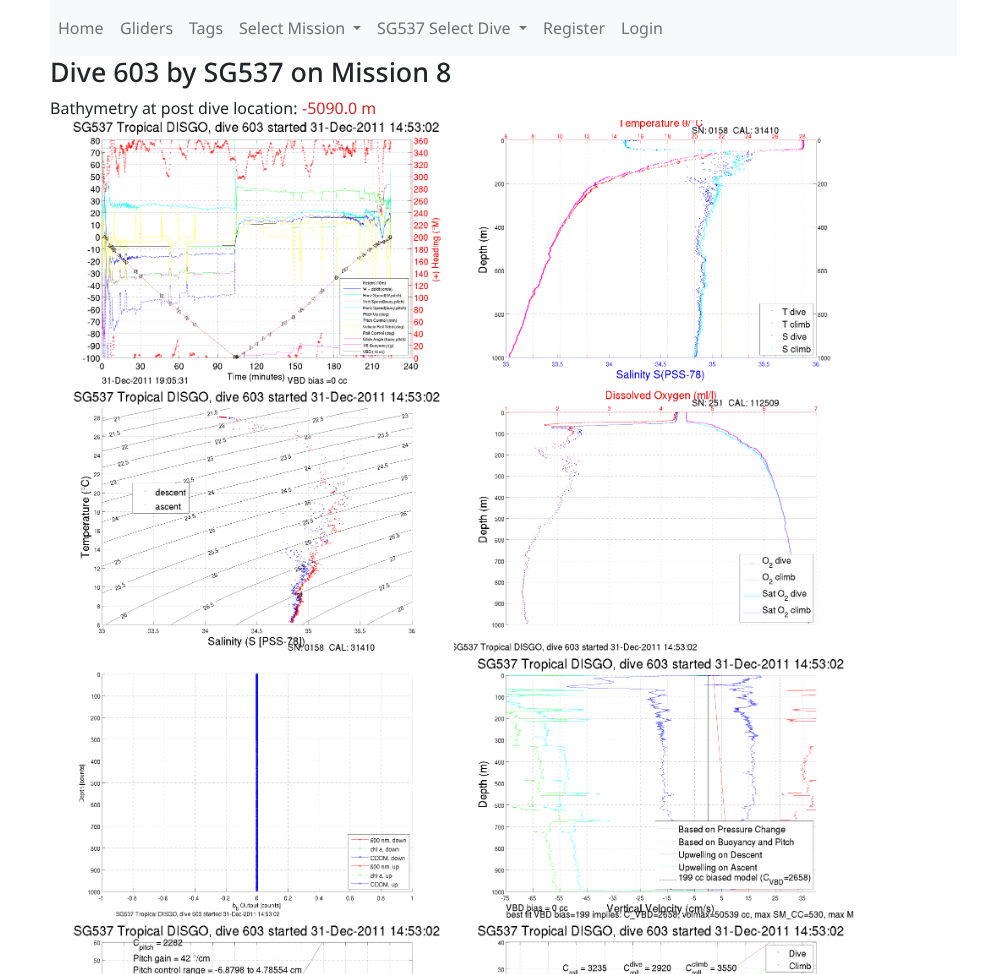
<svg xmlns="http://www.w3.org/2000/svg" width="1007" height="974">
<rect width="100%" height="100%" fill="#fff"/>
<rect x="50" width="907" height="56" fill="#f8f9fa"/>
<text x="58" y="34" style="font-family:Noto Sans;font-size:16px;fill:#707071">Home</text>
<text x="120" y="34" style="font-family:Noto Sans;font-size:16px;fill:#707071">Gliders</text>
<text x="189" y="34" style="font-family:Noto Sans;font-size:16px;fill:#707071">Tags</text>
<text x="239" y="34" style="font-family:Noto Sans;font-size:16px;fill:#707071">Select Mission</text>
<path d="M353 26h8l-4 4z" fill="#707071"/>
<text x="377" y="34" style="font-family:Noto Sans;font-size:16px;fill:#707071">SG537 Select Dive</text>
<path d="M519 26h8l-4 4z" fill="#707071"/>
<text x="543" y="34" style="font-family:Noto Sans;font-size:16px;fill:#707071">Register</text>
<text x="621" y="34" style="font-family:Noto Sans;font-size:16px;fill:#707071">Login</text>
<text x="50" y="82" style="font-family:Noto Sans;font-size:26.8px;font-weight:500;fill:#212529">Dive 603 by SG537 on Mission 8</text>
<text x="50" y="114" style="font-family:Noto Sans;font-size:16px;fill:#212529">Bathymetry at post dive location:</text>
<text x="302" y="114" style="font-family:Noto Sans;font-size:16px;fill:#d92727">-5090.0 m</text>
<image x="73" y="121" width="368" height="263" href="media/1.png"/>
<image x="478" y="120" width="353" height="262" href="media/2.png"/>
<image x="73" y="391" width="367" height="260" href="media/3.png"/>
<image x="454" y="390" width="364" height="263" href="media/4.png"/>
<image x="78" y="672" width="335" height="246" href="media/5.png"/>
<image x="477" y="658" width="377" height="263" href="media/6.png"/>
<image x="73" y="925" width="367" height="49" href="media/7.png"/>
<image x="477" y="925" width="367" height="49" href="media/8.png"/>
</svg>
